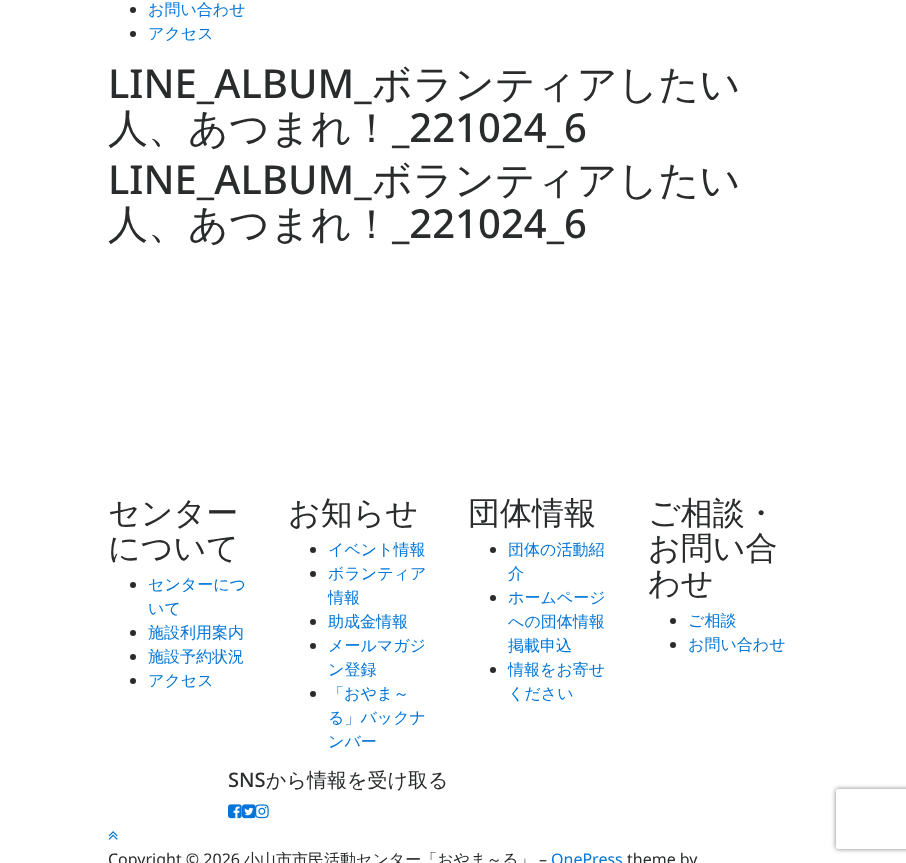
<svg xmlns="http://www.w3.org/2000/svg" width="906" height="863">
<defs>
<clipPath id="clip1"><path d="M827 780h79v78h-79zm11 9h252c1 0 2 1 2 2v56c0 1-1 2-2 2h-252c-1 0-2-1-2-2v-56c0-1 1-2 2-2z" clip-rule="evenodd"/></clipPath>
</defs>
<rect width="100%" height="100%" fill="#fff"/>
<circle cx="133" cy="10" r="3" fill="#292b2c"/>
<text x="148" y="15" style="font-family:WenQuanYi Zen Hei;font-size:16px;font-weight:500;fill:#0275d8">お問い合わせ</text>
<circle cx="133" cy="34" r="3" fill="#292b2c"/>
<text x="148" y="39" style="font-family:WenQuanYi Zen Hei;font-size:16px;font-weight:500;fill:#0275d8">アクセス</text>
<text x="108" y="98" style="font-family:Noto Sans;font-size:40px;font-weight:500;fill:#292b2c">LINE_ALBUM_</text>
<text x="372" y="98" style="font-family:WenQuanYi Zen Hei;font-size:40px;font-weight:500;fill:#292b2c">ボランティアしたい</text>
<text x="108" y="142" style="font-family:WenQuanYi Zen Hei;font-size:40px;font-weight:500;fill:#292b2c">人、あつまれ！</text>
<text x="392" y="142" style="font-family:Noto Sans;font-size:40px;font-weight:500;fill:#292b2c">_221024_6</text>
<text x="108" y="194" style="font-family:Noto Sans;font-size:40px;font-weight:500;fill:#292b2c">LINE_ALBUM_</text>
<text x="372" y="194" style="font-family:WenQuanYi Zen Hei;font-size:40px;font-weight:500;fill:#292b2c">ボランティアしたい</text>
<text x="108" y="238" style="font-family:WenQuanYi Zen Hei;font-size:40px;font-weight:500;fill:#292b2c">人、あつまれ！</text>
<text x="392" y="238" style="font-family:Noto Sans;font-size:40px;font-weight:500;fill:#292b2c">_221024_6</text>
<text x="108" y="524" style="font-family:WenQuanYi Zen Hei;font-size:32px;font-weight:500;fill:#292b2c">センター</text>
<text x="108" y="559" style="font-family:WenQuanYi Zen Hei;font-size:32px;font-weight:500;fill:#292b2c">について</text>
<circle cx="133" cy="585" r="3" fill="#292b2c"/>
<text x="148" y="590" style="font-family:WenQuanYi Zen Hei;font-size:16px;font-weight:500;fill:#0275d8">センターにつ</text>
<text x="148" y="614" style="font-family:WenQuanYi Zen Hei;font-size:16px;font-weight:500;fill:#0275d8">いて</text>
<circle cx="133" cy="633" r="3" fill="#292b2c"/>
<text x="148" y="638" style="font-family:WenQuanYi Zen Hei;font-size:16px;font-weight:500;fill:#0275d8">施設利用案内</text>
<circle cx="133" cy="657" r="3" fill="#292b2c"/>
<text x="148" y="662" style="font-family:WenQuanYi Zen Hei;font-size:16px;font-weight:500;fill:#0275d8">施設予約状況</text>
<circle cx="133" cy="681" r="3" fill="#292b2c"/>
<text x="148" y="686" style="font-family:WenQuanYi Zen Hei;font-size:16px;font-weight:500;fill:#0275d8">アクセス</text>
<text x="288" y="524" style="font-family:WenQuanYi Zen Hei;font-size:32px;font-weight:500;fill:#292b2c">お知らせ</text>
<circle cx="313" cy="550" r="3" fill="#292b2c"/>
<text x="328" y="555" style="font-family:WenQuanYi Zen Hei;font-size:16px;font-weight:500;fill:#0275d8">イベント情報</text>
<circle cx="313" cy="574" r="3" fill="#292b2c"/>
<text x="328" y="579" style="font-family:WenQuanYi Zen Hei;font-size:16px;font-weight:500;fill:#0275d8">ボランティア</text>
<text x="328" y="603" style="font-family:WenQuanYi Zen Hei;font-size:16px;font-weight:500;fill:#0275d8">情報</text>
<circle cx="313" cy="622" r="3" fill="#292b2c"/>
<text x="328" y="627" style="font-family:WenQuanYi Zen Hei;font-size:16px;font-weight:500;fill:#0275d8">助成金情報</text>
<circle cx="313" cy="646" r="3" fill="#292b2c"/>
<text x="328" y="651" style="font-family:WenQuanYi Zen Hei;font-size:16px;font-weight:500;fill:#0275d8">メールマガジ</text>
<text x="328" y="675" style="font-family:WenQuanYi Zen Hei;font-size:16px;font-weight:500;fill:#0275d8">ン登録</text>
<circle cx="313" cy="694" r="3" fill="#292b2c"/>
<text x="328" y="699" style="font-family:WenQuanYi Zen Hei;font-size:16px;font-weight:500;fill:#0275d8">「おやま～</text>
<text x="328" y="723" style="font-family:WenQuanYi Zen Hei;font-size:16px;font-weight:500;fill:#0275d8">る」バックナ</text>
<text x="328" y="747" style="font-family:WenQuanYi Zen Hei;font-size:16px;font-weight:500;fill:#0275d8">ンバー</text>
<text x="468" y="524" style="font-family:WenQuanYi Zen Hei;font-size:32px;font-weight:500;fill:#292b2c">団体情報</text>
<circle cx="493" cy="550" r="3" fill="#292b2c"/>
<text x="508" y="555" style="font-family:WenQuanYi Zen Hei;font-size:16px;font-weight:500;fill:#0275d8">団体の活動紹</text>
<text x="508" y="579" style="font-family:WenQuanYi Zen Hei;font-size:16px;font-weight:500;fill:#0275d8">介</text>
<circle cx="493" cy="598" r="3" fill="#292b2c"/>
<text x="508" y="603" style="font-family:WenQuanYi Zen Hei;font-size:16px;font-weight:500;fill:#0275d8">ホームページ</text>
<text x="508" y="627" style="font-family:WenQuanYi Zen Hei;font-size:16px;font-weight:500;fill:#0275d8">への団体情報</text>
<text x="508" y="651" style="font-family:WenQuanYi Zen Hei;font-size:16px;font-weight:500;fill:#0275d8">掲載申込</text>
<circle cx="493" cy="670" r="3" fill="#292b2c"/>
<text x="508" y="675" style="font-family:WenQuanYi Zen Hei;font-size:16px;font-weight:500;fill:#0275d8">情報をお寄せ</text>
<text x="508" y="699" style="font-family:WenQuanYi Zen Hei;font-size:16px;font-weight:500;fill:#0275d8">ください</text>
<text x="648" y="524" style="font-family:WenQuanYi Zen Hei;font-size:32px;font-weight:500;fill:#292b2c">ご相談・</text>
<text x="648" y="559" style="font-family:WenQuanYi Zen Hei;font-size:32px;font-weight:500;fill:#292b2c">お問い合</text>
<text x="648" y="594" style="font-family:WenQuanYi Zen Hei;font-size:32px;font-weight:500;fill:#292b2c">わせ</text>
<circle cx="673" cy="621" r="3" fill="#292b2c"/>
<text x="688" y="626" style="font-family:WenQuanYi Zen Hei;font-size:16px;font-weight:500;fill:#0275d8">ご相談</text>
<circle cx="673" cy="645" r="3" fill="#292b2c"/>
<text x="688" y="650" style="font-family:WenQuanYi Zen Hei;font-size:16px;font-weight:500;fill:#0275d8">お問い合わせ</text>
<text x="228" y="787" style="font-family:Noto Sans;font-size:20px;font-weight:500;fill:#292b2c">SNS</text>
<text x="266" y="787" style="font-family:WenQuanYi Zen Hei;font-size:20px;font-weight:500;fill:#292b2c">から情報を受け取る</text>
<image x="228" y="804" width="14" height="15" href="media/1.png"/>
<image x="242" y="804" width="14" height="15" href="media/2.png"/>
<image x="255" y="804" width="14" height="15" href="media/3.png"/>
<image x="108" y="831" width="10" height="9" href="media/4.png"/>
<text x="108" y="865" style="font-family:Noto Sans;font-size:16px;fill:#292b2c">Copyright © 2026</text>
<text x="244" y="865" style="font-family:WenQuanYi Zen Hei;font-size:16px;font-weight:500;fill:#292b2c">小山市市民活動センター「おやま～る」</text>
<text x="539" y="865" style="font-family:Noto Sans;font-size:16px;fill:#292b2c">–</text>
<text x="551" y="865" style="font-family:Noto Sans;font-size:16px;fill:#0275d8">OnePress</text>
<text x="627" y="865" style="font-family:Noto Sans;font-size:16px;fill:#292b2c">theme by</text>
<g clip-path="url(#clip1)">
<rect x="836" y="789" width="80" height="60" rx="2" fill="#808080" filter="blur(2.5px)"/>
</g>
</svg>
